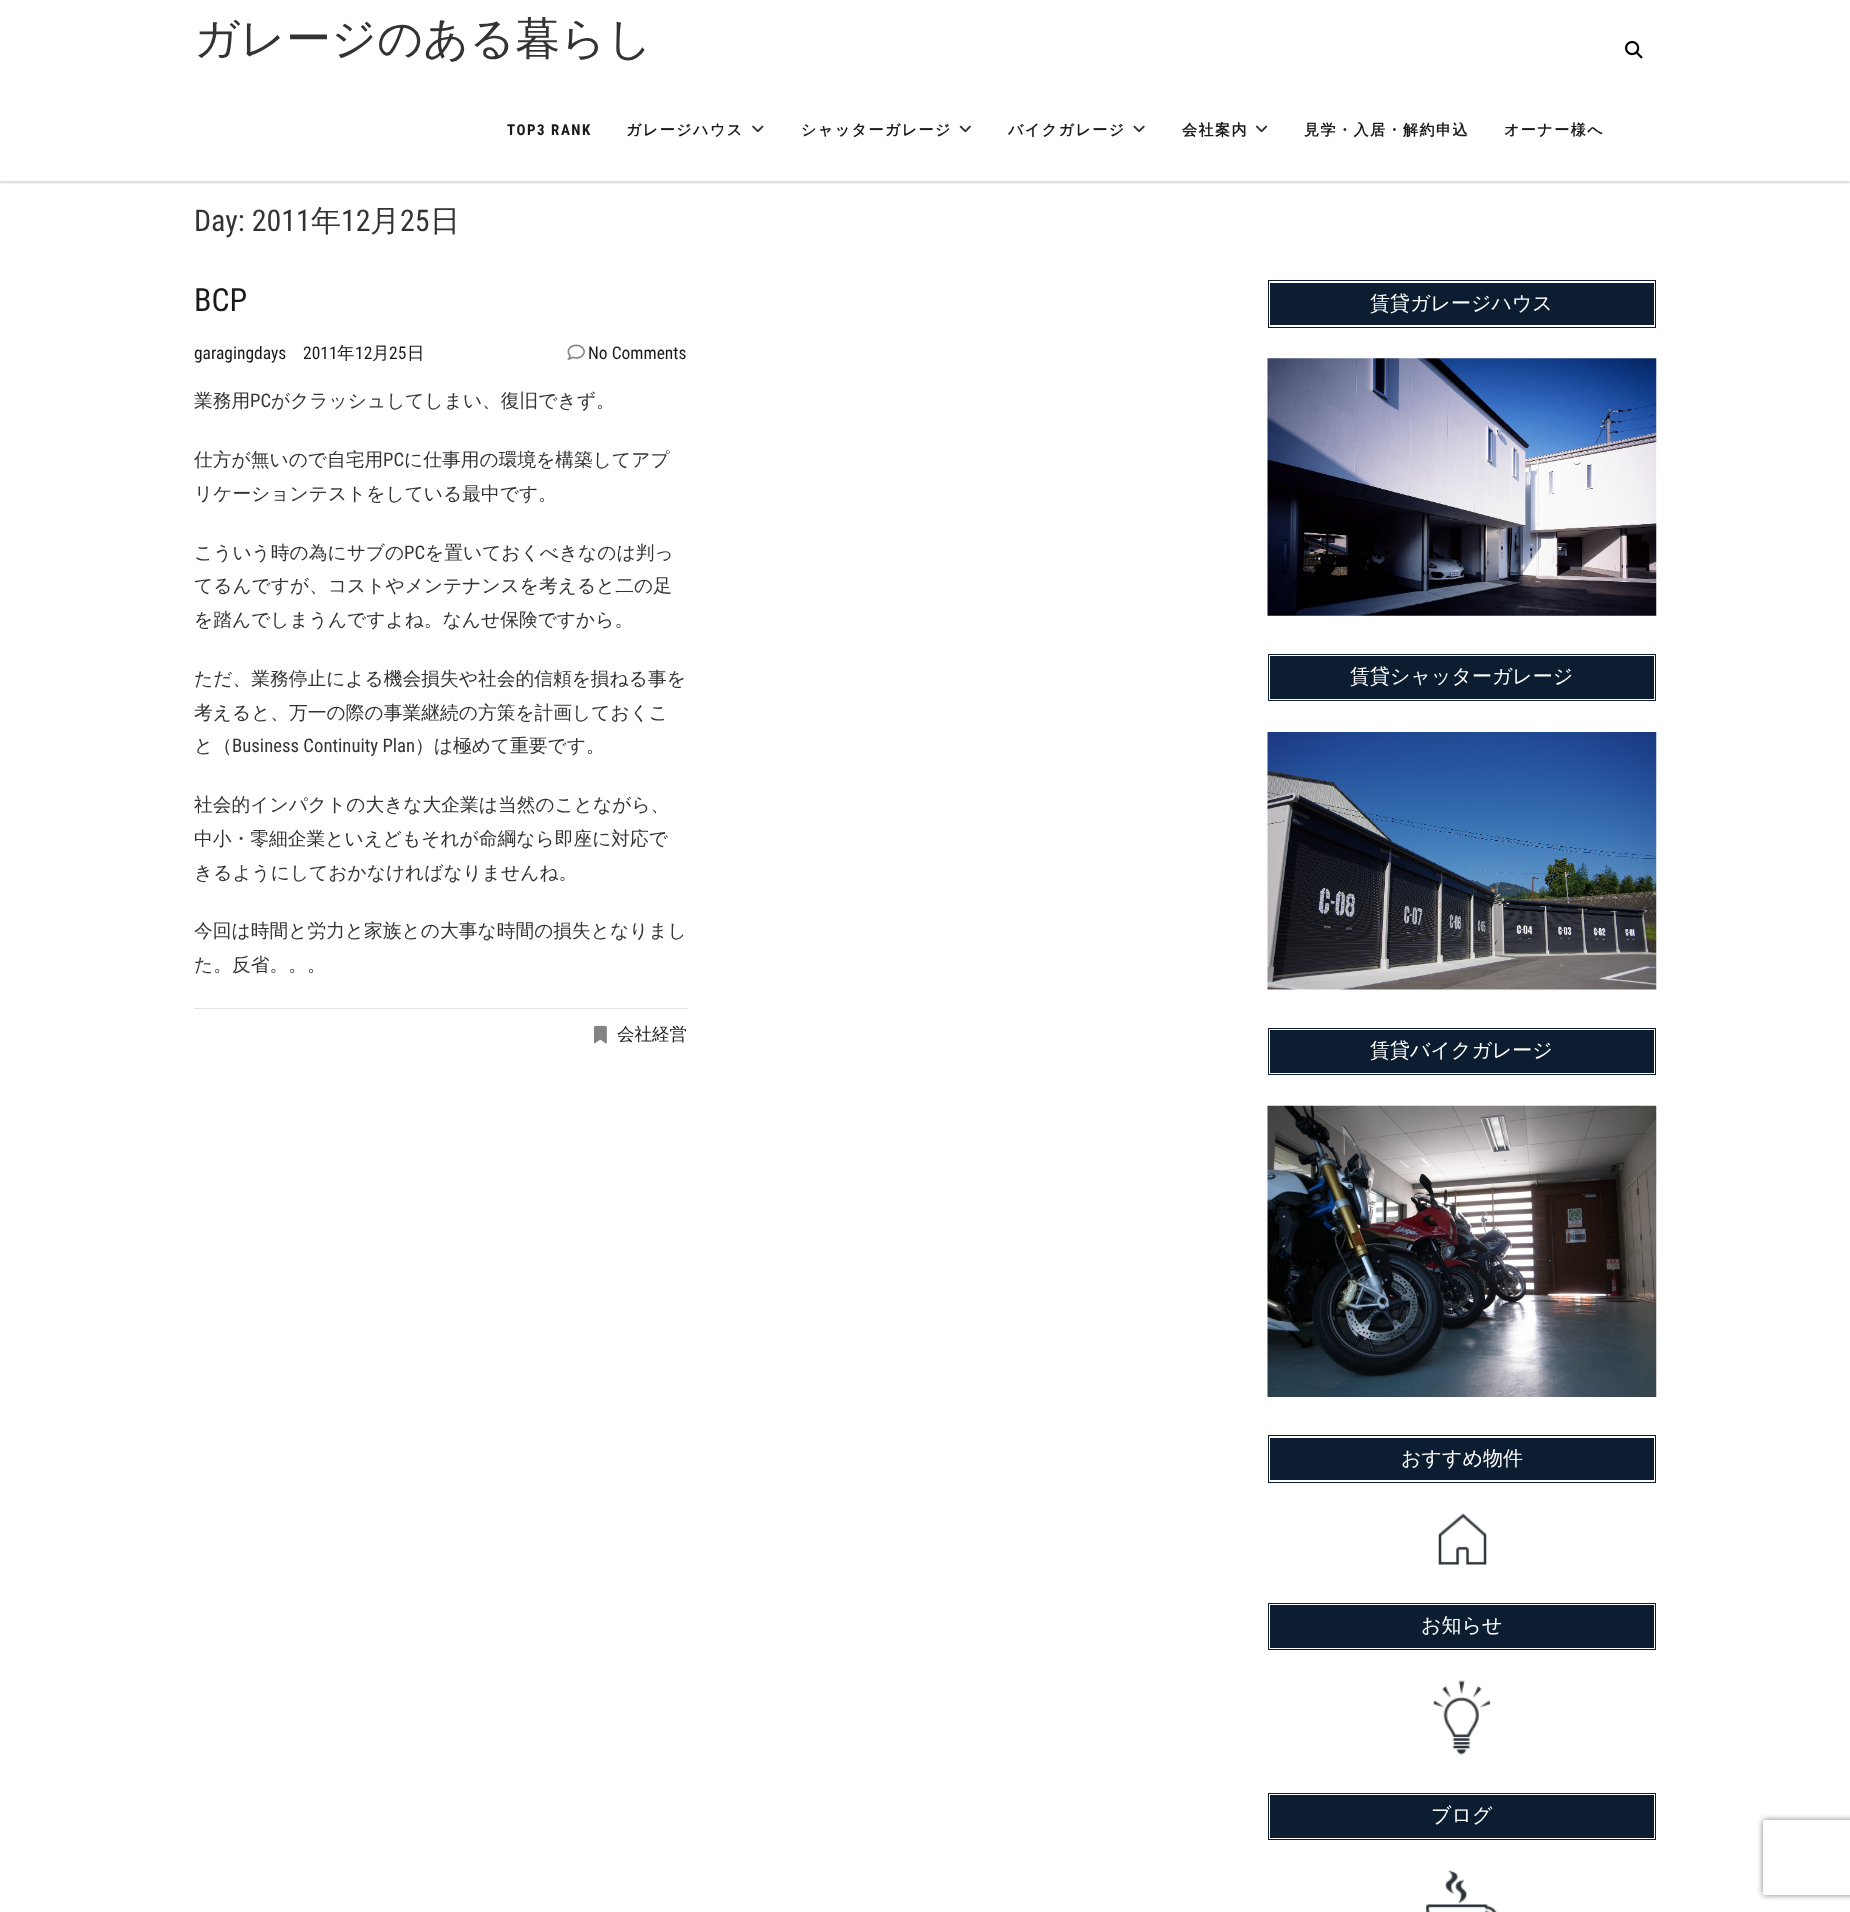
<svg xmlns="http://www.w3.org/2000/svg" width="1850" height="1912">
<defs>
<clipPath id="clip1"><rect x="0" y="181" width="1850" height="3"/></clipPath>
<clipPath id="clip2"><path d="M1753 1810h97v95h-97zm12.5 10h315c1.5 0 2.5 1 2.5 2.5v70c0 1.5-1 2.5-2.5 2.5h-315c-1.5 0-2.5-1-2.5-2.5v-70c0-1.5 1-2.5 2.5-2.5z" clip-rule="evenodd"/></clipPath>
</defs>
<rect width="100%" height="100%" fill="#fff"/>
<g clip-path="url(#clip1)">
<rect y="1" width="1850" height="182" fill="#00000026" filter="blur(1px)"/>
</g>
<text x="194" y="54" style="font-family:WenQuanYi Zen Hei;font-size:45px;font-weight:500;fill:#333">ガレージのある暮らし</text>
<image x="1625" y="40" width="18" height="19" href="media/1.png"/>
<text x="507" y="135" style="font-family:Roboto Condensed;font-size:15px;font-weight:bold;letter-spacing:1.5px;fill:#1a1a1a">TOP3 RANK</text>
<text x="626" y="135" style="font-family:WenQuanYi Zen Hei;font-size:15px;font-weight:bold;letter-spacing:1.5px;fill:#1a1a1a">ガレージハウス</text>
<image x="752" y="125" width="12" height="8" href="media/2.png"/>
<text x="801" y="135" style="font-family:WenQuanYi Zen Hei;font-size:15px;font-weight:bold;letter-spacing:1.5px;fill:#1a1a1a">シャッターガレージ</text>
<image x="959" y="125" width="12" height="8" href="media/3.png"/>
<text x="1008" y="135" style="font-family:WenQuanYi Zen Hei;font-size:15px;font-weight:bold;letter-spacing:1.5px;fill:#1a1a1a">バイクガレージ</text>
<image x="1133" y="125" width="12" height="8" href="media/4.png"/>
<text x="1182" y="135" style="font-family:WenQuanYi Zen Hei;font-size:15px;font-weight:bold;letter-spacing:1.5px;fill:#1a1a1a">会社案内</text>
<image x="1256" y="125" width="12" height="8" href="media/5.png"/>
<text x="1304" y="135" style="font-family:WenQuanYi Zen Hei;font-size:15px;font-weight:bold;letter-spacing:1.5px;fill:#1a1a1a">見学・入居・解約申込</text>
<text x="1504" y="135" style="font-family:WenQuanYi Zen Hei;font-size:15px;font-weight:bold;letter-spacing:1.5px;fill:#1a1a1a">オーナー様へ</text>
<text x="194" y="231" style="font-family:Roboto Condensed;font-size:30px;fill:#333">Day: 2011</text>
<text x="311" y="231" style="font-family:WenQuanYi Zen Hei;font-size:30px;font-weight:500;fill:#333">年</text>
<text x="341" y="231" style="font-family:Roboto Condensed;font-size:30px;fill:#333">12</text>
<text x="370" y="231" style="font-family:WenQuanYi Zen Hei;font-size:30px;font-weight:500;fill:#333">月</text>
<text x="400" y="231" style="font-family:Roboto Condensed;font-size:30px;fill:#333">25</text>
<text x="430" y="231" style="font-family:WenQuanYi Zen Hei;font-size:30px;font-weight:500;fill:#333">日</text>
<text x="194" y="311" style="font-family:Roboto Condensed;font-size:32px;fill:#1a1a1a">BCP</text>
<text x="194" y="359" style="font-family:Roboto Condensed;font-size:17.5px;fill:#1a1a1a">garagingdays</text>
<text x="303" y="359" style="font-family:Roboto Condensed;font-size:17.5px;fill:#1a1a1a">2011</text>
<text x="337" y="359" style="font-family:WenQuanYi Zen Hei;font-size:17.5px;font-weight:500;fill:#1a1a1a">年</text>
<text x="355" y="359" style="font-family:Roboto Condensed;font-size:17.5px;fill:#1a1a1a">12</text>
<text x="372" y="359" style="font-family:WenQuanYi Zen Hei;font-size:17.5px;font-weight:500;fill:#1a1a1a">月</text>
<text x="389" y="359" style="font-family:Roboto Condensed;font-size:17.5px;fill:#1a1a1a">25</text>
<text x="407" y="359" style="font-family:WenQuanYi Zen Hei;font-size:17.5px;font-weight:500;fill:#1a1a1a">日</text>
<image x="567" y="344" width="18" height="16" href="media/6.png"/>
<text x="588" y="359" style="font-family:Roboto Condensed;font-size:17.5px;fill:#1a1a1a">No Comments</text>
<text x="194" y="407" style="font-family:WenQuanYi Zen Hei;font-size:18.75px;font-weight:500;fill:#333">業務用</text>
<text x="250" y="407" style="font-family:Roboto Condensed;font-size:18.75px;fill:#333">PC</text>
<text x="271" y="407" style="font-family:WenQuanYi Zen Hei;font-size:18.75px;font-weight:500;fill:#333">がクラッシュしてしまい、復旧できず。</text>
<text x="194" y="466" style="font-family:WenQuanYi Zen Hei;font-size:18.75px;font-weight:500;fill:#333">仕方が無いので自宅用</text>
<text x="383" y="466" style="font-family:Roboto Condensed;font-size:18.75px;fill:#333">PC</text>
<text x="404" y="466" style="font-family:WenQuanYi Zen Hei;font-size:18.75px;font-weight:500;fill:#333">に仕事用の環境を構築してアプ</text>
<text x="194" y="500" style="font-family:WenQuanYi Zen Hei;font-size:18.75px;font-weight:500;fill:#333">リケーションテストをしている最中です。</text>
<text x="194" y="559" style="font-family:WenQuanYi Zen Hei;font-size:18.75px;font-weight:500;fill:#333">こういう時の為にサブの</text>
<text x="404" y="559" style="font-family:Roboto Condensed;font-size:18.75px;fill:#333">PC</text>
<text x="425" y="559" style="font-family:WenQuanYi Zen Hei;font-size:18.75px;font-weight:500;fill:#333">を置いておくべきなのは判っ</text>
<text x="194" y="592" style="font-family:WenQuanYi Zen Hei;font-size:18.75px;font-weight:500;fill:#333">てるんですが、コストやメンテナンスを考えると二の足</text>
<text x="194" y="626" style="font-family:WenQuanYi Zen Hei;font-size:18.75px;font-weight:500;fill:#333">を踏んでしまうんですよね。なんせ保険ですから。</text>
<text x="194" y="685" style="font-family:WenQuanYi Zen Hei;font-size:18.75px;font-weight:500;fill:#333">ただ、業務停止による機会損失や社会的信頼を損ねる事を</text>
<text x="194" y="719" style="font-family:WenQuanYi Zen Hei;font-size:18.75px;font-weight:500;fill:#333">考えると、万一の際の事業継続の方策を計画しておくこ</text>
<text x="194" y="752" style="font-family:WenQuanYi Zen Hei;font-size:18.75px;font-weight:500;fill:#333">と（</text>
<text x="232" y="752" style="font-family:Roboto Condensed;font-size:18.75px;fill:#333">Business Continuity Plan</text>
<text x="415" y="752" style="font-family:WenQuanYi Zen Hei;font-size:18.75px;font-weight:500;fill:#333">）は極めて重要です。</text>
<text x="194" y="811" style="font-family:WenQuanYi Zen Hei;font-size:18.75px;font-weight:500;fill:#333">社会的インパクトの大きな大企業は当然のことながら、</text>
<text x="194" y="845" style="font-family:WenQuanYi Zen Hei;font-size:18.75px;font-weight:500;fill:#333">中小・零細企業といえどもそれが命綱なら即座に対応で</text>
<text x="194" y="879" style="font-family:WenQuanYi Zen Hei;font-size:18.75px;font-weight:500;fill:#333">きるようにしておかなければなりませんね。</text>
<text x="194" y="937" style="font-family:WenQuanYi Zen Hei;font-size:18.75px;font-weight:500;fill:#333">今回は時間と労力と家族との大事な時間の損失となりまし</text>
<text x="194" y="971" style="font-family:WenQuanYi Zen Hei;font-size:18.75px;font-weight:500;fill:#333">た。反省。。。</text>
<rect x="194" y="1008" width="494" height="1" fill="#e4e4e4"/>
<image x="594" y="1025" width="13" height="19" href="media/7.png"/>
<text x="617" y="1040" style="font-family:WenQuanYi Zen Hei;font-size:17.5px;font-weight:500;fill:#1a1a1a">会社経営</text>
<rect x="1270" y="283" width="384" height="42" fill="#0d1d31"/>
<rect x="1268.5" y="280.5" width="387" height="47" fill="none" stroke="#0d1d31"/>
<text x="1370" y="310" style="font-family:WenQuanYi Zen Hei;font-size:20px;font-weight:500;fill:#fff">賃貸ガレージハウス</text>
<image x="1267" y="358" width="390" height="258" href="media/8.png"/>
<rect x="1270" y="656" width="384" height="43" fill="#0d1d31"/>
<rect x="1268.5" y="654.5" width="387" height="46" fill="none" stroke="#0d1d31"/>
<text x="1350" y="683" style="font-family:WenQuanYi Zen Hei;font-size:20px;font-weight:500;fill:#fff">賃貸シャッターガレージ</text>
<image x="1267" y="732" width="390" height="258" href="media/9.png"/>
<rect x="1270" y="1030" width="384" height="43" fill="#0d1d31"/>
<rect x="1268.5" y="1028.5" width="387" height="46" fill="none" stroke="#0d1d31"/>
<text x="1370" y="1057" style="font-family:WenQuanYi Zen Hei;font-size:20px;font-weight:500;fill:#fff">賃貸バイクガレージ</text>
<image x="1267" y="1105" width="390" height="292" href="media/10.png"/>
<rect x="1270" y="1438" width="384" height="42" fill="#0d1d31"/>
<rect x="1268.5" y="1435.5" width="387" height="47" fill="none" stroke="#0d1d31"/>
<text x="1401" y="1465" style="font-family:WenQuanYi Zen Hei;font-size:20px;font-weight:500;fill:#fff">おすすめ物件</text>
<image x="1438" y="1513" width="49" height="52" href="media/11.png"/>
<rect x="1270" y="1605" width="384" height="43" fill="#0d1d31"/>
<rect x="1268.5" y="1603.5" width="387" height="46" fill="none" stroke="#0d1d31"/>
<text x="1421" y="1632" style="font-family:WenQuanYi Zen Hei;font-size:20px;font-weight:500;fill:#fff">お知らせ</text>
<image x="1433" y="1680" width="58" height="75" href="media/12.png"/>
<rect x="1270" y="1795" width="384" height="43" fill="#0d1d31"/>
<rect x="1268.5" y="1793.5" width="387" height="46" fill="none" stroke="#0d1d31"/>
<text x="1431" y="1822" style="font-family:WenQuanYi Zen Hei;font-size:20px;font-weight:500;fill:#fff">ブログ</text>
<image x="1426" y="1870" width="71" height="42" href="media/13.png"/>
<g clip-path="url(#clip2)">
<rect x="1763" y="1820" width="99" height="75" rx="2.5" fill="#808080" filter="blur(3px)"/>
</g>
</svg>
